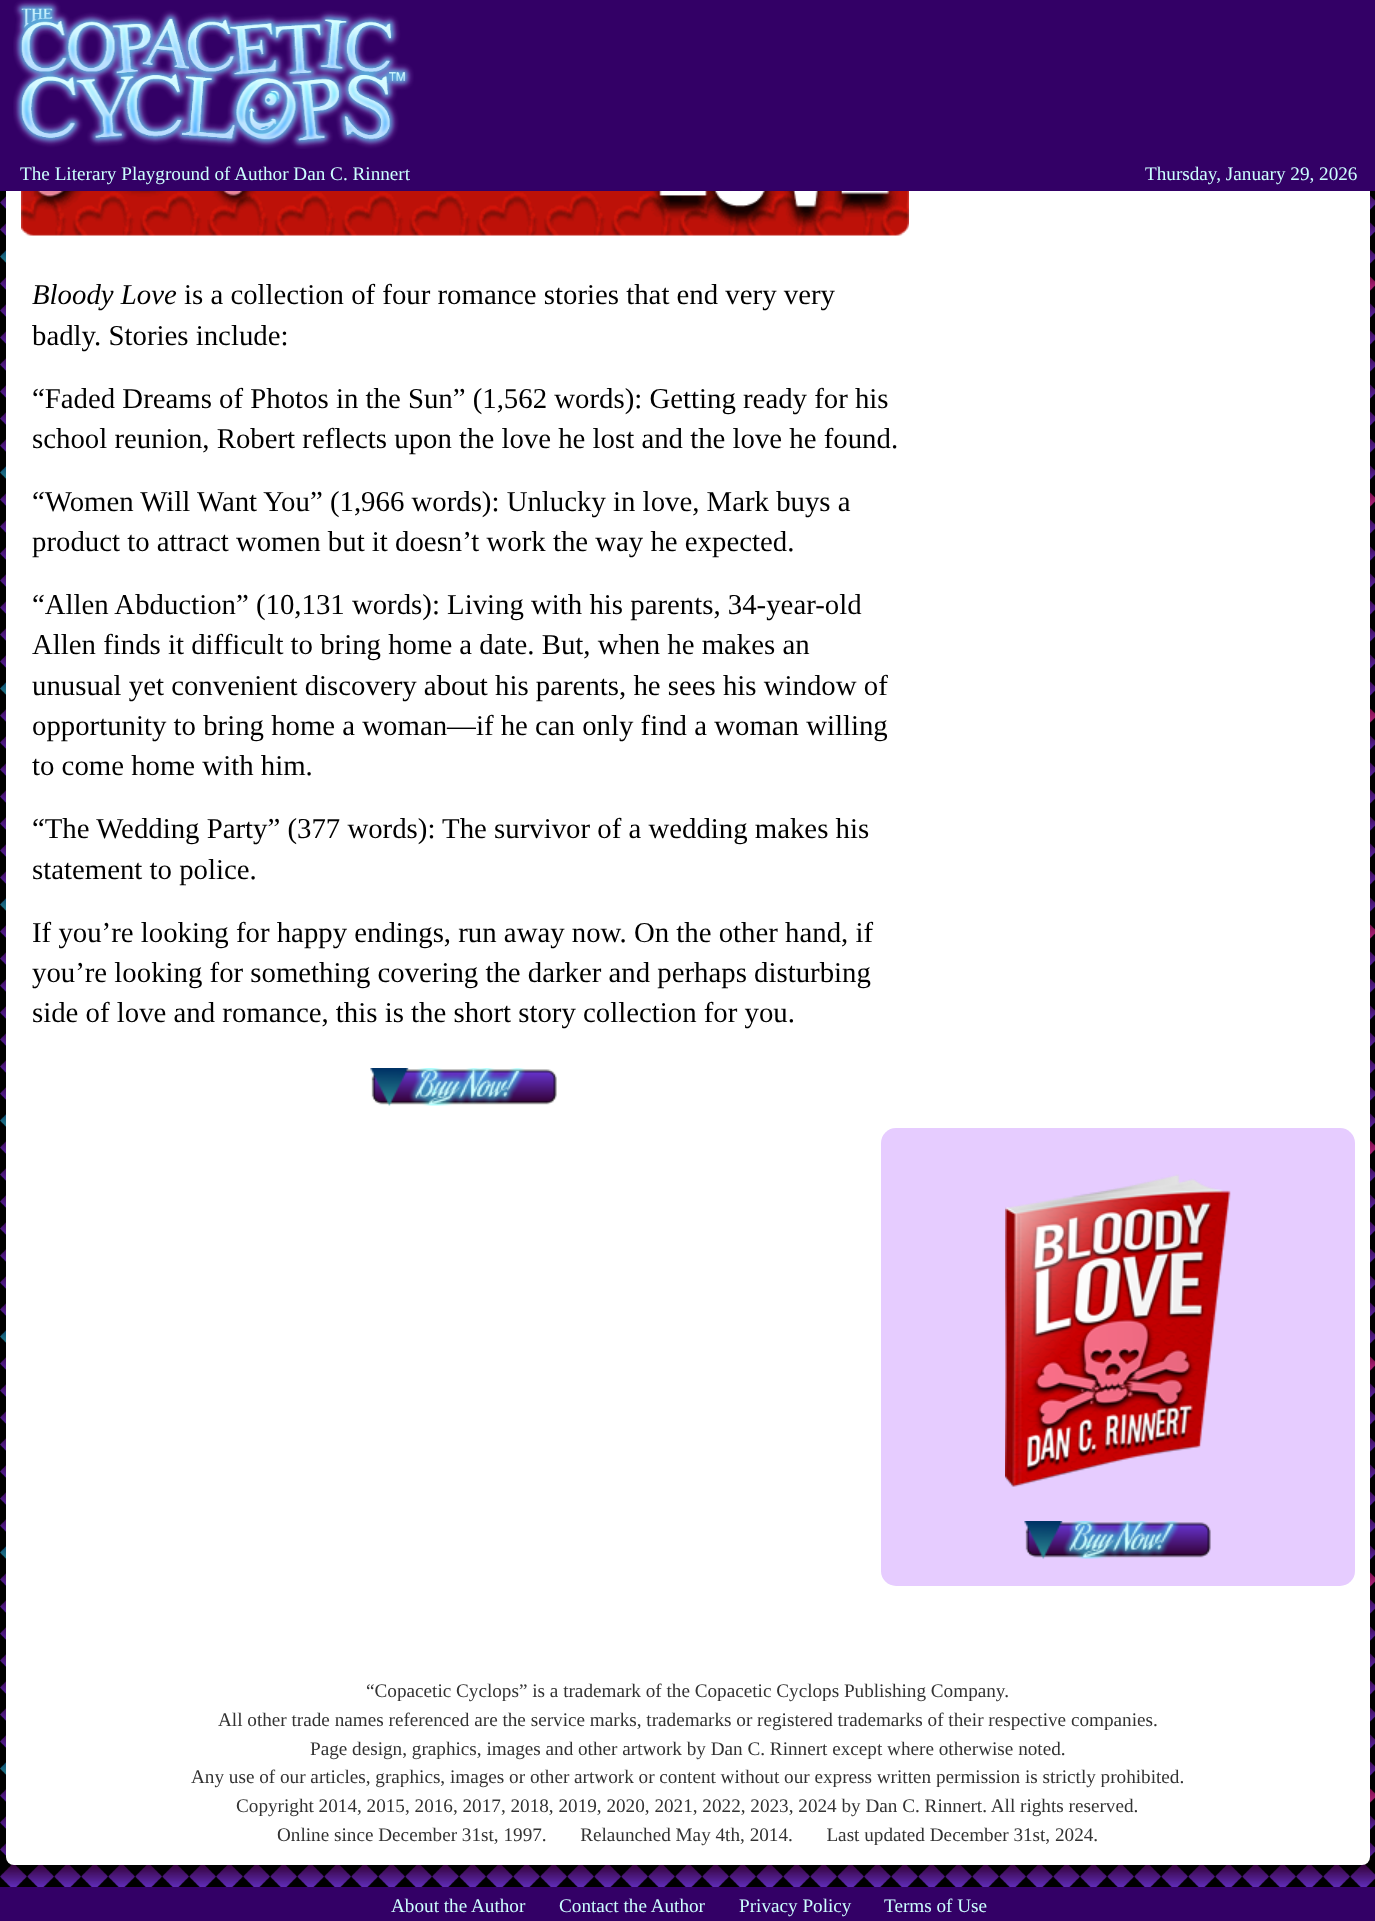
<svg xmlns="http://www.w3.org/2000/svg" width="1375" height="1921">
<rect width="100%" height="100%" fill="#fff"/>
<image x="0" y="191" width="1375" height="1696" href="media/1.png"/>
<rect x="6" y="-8" width="1364" height="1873" rx="8" fill="#fff"/>
<rect width="1375" height="191" fill="#306"/>
<image x="13" y="0" width="401" height="149" href="media/2.png"/>
<text x="20" y="180" style="font-family:Liberation Serif;font-size:19.2px;fill:#cff">The Literary Playground of Author Dan C. Rinnert</text>
<text x="1145" y="180" style="font-family:Liberation Serif;font-size:19.2px;fill:#cff">Thursday, January 29, 2026</text>
<image x="21" y="191" width="888" height="45" href="media/3.png"/>
<text x="32" y="304" style="font-family:Liberation Serif;font-size:28.8px;font-style:italic;fill:#000">Bloody Love</text>
<text x="184" y="304" style="font-family:Liberation Serif;font-size:28.8px;fill:#000">is a collection of four romance stories that end very very</text>
<text x="32" y="345" style="font-family:Liberation Serif;font-size:28.8px;fill:#000">badly. Stories include:</text>
<text x="32" y="408" style="font-family:Liberation Serif;font-size:28.8px;fill:#000">“Faded Dreams of Photos in the Sun” (1,562 words): Getting ready for his</text>
<text x="32" y="448" style="font-family:Liberation Serif;font-size:28.8px;fill:#000">school reunion, Robert reflects upon the love he lost and the love he found.</text>
<text x="32" y="511" style="font-family:Liberation Serif;font-size:28.8px;fill:#000">“Women Will Want You” (1,966 words): Unlucky in love, Mark buys a</text>
<text x="32" y="551" style="font-family:Liberation Serif;font-size:28.8px;fill:#000">product to attract women but it doesn’t work the way he expected.</text>
<text x="32" y="614" style="font-family:Liberation Serif;font-size:28.8px;fill:#000">“Allen Abduction” (10,131 words): Living with his parents, 34-year-old</text>
<text x="32" y="654" style="font-family:Liberation Serif;font-size:28.8px;fill:#000">Allen finds it difficult to bring home a date. But, when he makes an</text>
<text x="32" y="695" style="font-family:Liberation Serif;font-size:28.8px;fill:#000">unusual yet convenient discovery about his parents, he sees his window of</text>
<text x="32" y="735" style="font-family:Liberation Serif;font-size:28.8px;fill:#000">opportunity to bring home a woman—if he can only find a woman willing</text>
<text x="32" y="775" style="font-family:Liberation Serif;font-size:28.8px;fill:#000">to come home with him.</text>
<text x="32" y="838" style="font-family:Liberation Serif;font-size:28.8px;fill:#000">“The Wedding Party” (377 words): The survivor of a wedding makes his</text>
<text x="32" y="879" style="font-family:Liberation Serif;font-size:28.8px;fill:#000">statement to police.</text>
<text x="32" y="942" style="font-family:Liberation Serif;font-size:28.8px;fill:#000">If you’re looking for happy endings, run away now. On the other hand, if</text>
<text x="32" y="982" style="font-family:Liberation Serif;font-size:28.8px;fill:#000">you’re looking for something covering the darker and perhaps disturbing</text>
<text x="32" y="1022" style="font-family:Liberation Serif;font-size:28.8px;fill:#000">side of love and romance, this is the short story collection for you.</text>
<image x="370" y="1068" width="187" height="38" href="media/4.png"/>
<rect x="881" y="1128" width="474" height="458" rx="15" fill="#e6ccff"/>
<image x="1005" y="1174" width="226" height="313" href="media/5.png"/>
<image x="1024" y="1521" width="187" height="38" href="media/6.png"/>
<text x="366" y="1697" style="font-family:Liberation Serif;font-size:19.2px;fill:#333">“Copacetic Cyclops” is a trademark of the Copacetic Cyclops Publishing Company.</text>
<text x="218" y="1726" style="font-family:Liberation Serif;font-size:19.2px;fill:#333">All other trade names referenced are the service marks, trademarks or registered trademarks of their respective companies.</text>
<text x="310" y="1755" style="font-family:Liberation Serif;font-size:19.2px;fill:#333">Page design, graphics, images and other artwork by Dan C. Rinnert except where otherwise noted.</text>
<text x="191" y="1783" style="font-family:Liberation Serif;font-size:19.2px;fill:#333">Any use of our articles, graphics, images or other artwork or content without our express written permission is strictly prohibited.</text>
<text x="236" y="1812" style="font-family:Liberation Serif;font-size:19.2px;fill:#333">Copyright 2014, 2015, 2016, 2017, 2018, 2019, 2020, 2021, 2022, 2023, 2024 by Dan C. Rinnert. All rights reserved.</text>
<text x="277" y="1841" style="font-family:Liberation Serif;font-size:19.2px;fill:#333" xml:space="preserve">Online since December 31st, 1997.       Relaunched May 4th, 2014.       Last updated December 31st, 2024.</text>
<rect y="1887" width="1375" height="34" fill="#306"/>
<text x="391" y="1912" style="font-family:Liberation Serif;font-size:19.2px;fill:#cff">About the Author</text>
<text x="559" y="1912" style="font-family:Liberation Serif;font-size:19.2px;fill:#cff">Contact the Author</text>
<text x="739" y="1912" style="font-family:Liberation Serif;font-size:19.2px;fill:#cff">Privacy Policy</text>
<text x="884" y="1912" style="font-family:Liberation Serif;font-size:19.2px;fill:#cff">Terms of Use</text>
</svg>
